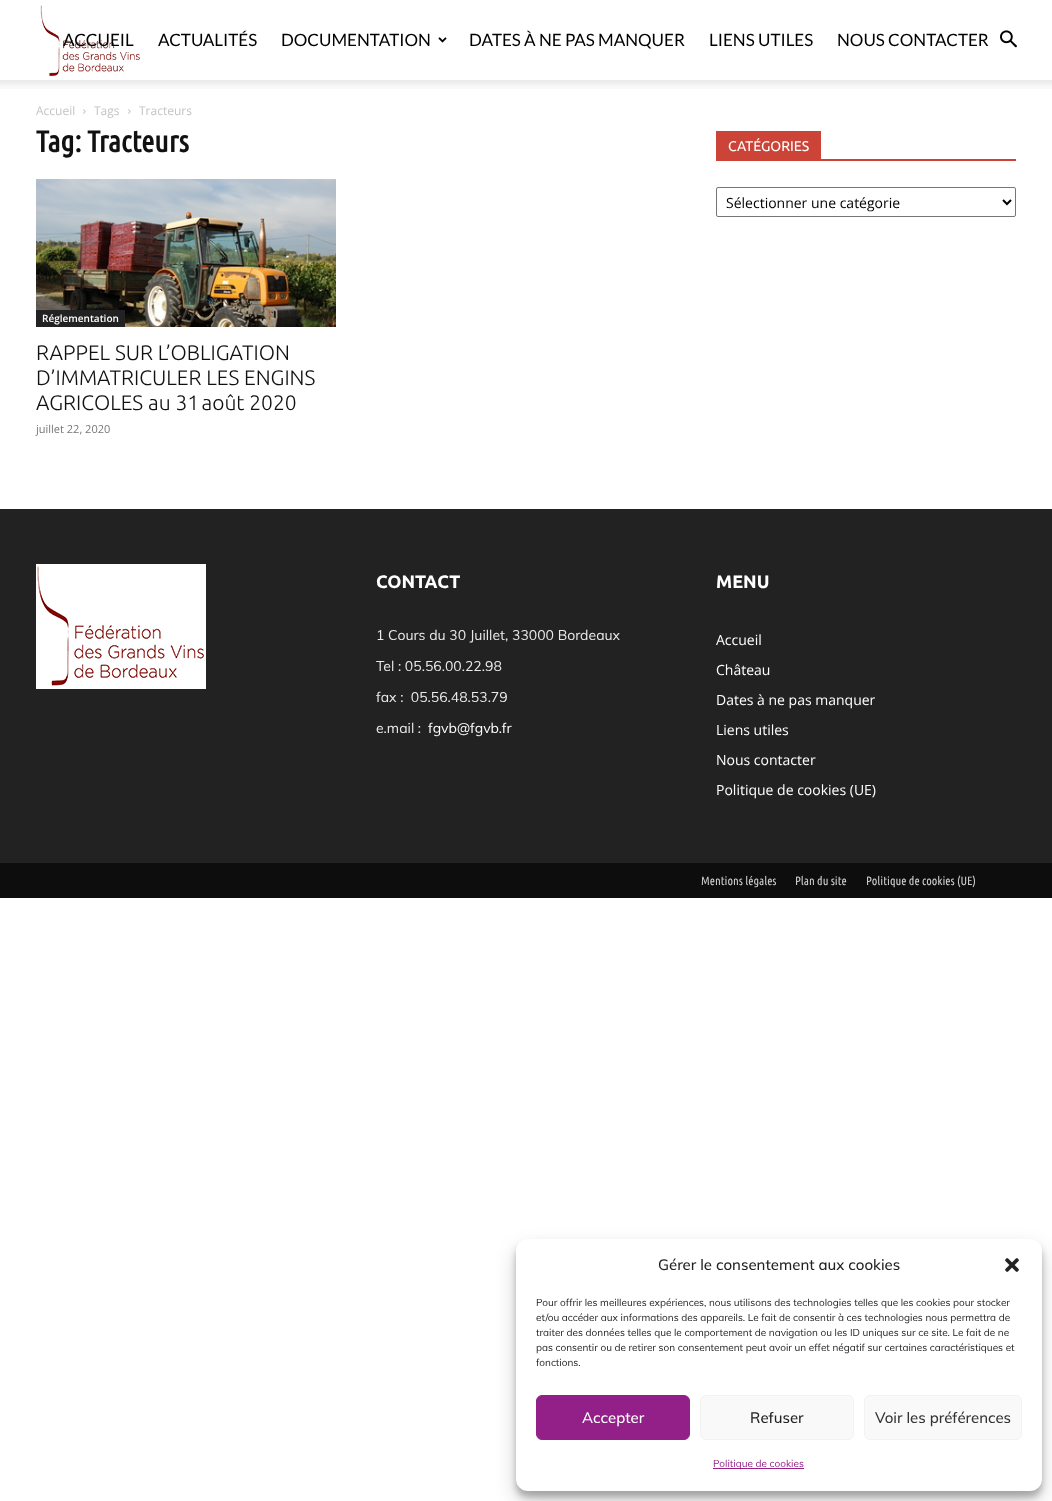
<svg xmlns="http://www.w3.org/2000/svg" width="1052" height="1501">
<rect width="100%" height="100%" fill="#fff"/>
<image x="40" y="5" width="100" height="72" href="media/1.png"/>
<text x="63" y="46" style="font-family:Lato;font-size:17px;fill:#000">ACCUEIL</text>
<text x="158" y="46" style="font-family:Lato;font-size:17px;fill:#000">ACTUALITÉS</text>
<text x="281" y="46" style="font-family:Lato;font-size:17px;fill:#000">DOCUMENTATION</text>
<image x="438" y="37" width="9" height="6" href="media/2.png"/>
<text x="469" y="46" style="font-family:Lato;font-size:17px;fill:#000">DATES À NE PAS MANQUER</text>
<text x="709" y="46" style="font-family:Lato;font-size:17px;fill:#000">LIENS UTILES</text>
<text x="837" y="46" style="font-family:Lato;font-size:17px;fill:#000">NOUS CONTACTER</text>
<image x="1000" y="30" width="17" height="18" href="media/3.png"/>
<image x="0" y="80" width="1052" height="9" href="media/4.png"/>
<text x="36" y="115" style="font-family:Open Sans;font-size:12px;fill:#c3c3c3">Accueil</text>
<image x="83" y="109" width="3" height="5" href="media/5.png"/>
<text x="94" y="115" style="font-family:Open Sans;font-size:12px;fill:#c3c3c3">Tags</text>
<image x="128" y="109" width="3" height="5" href="media/5.png"/>
<text x="139" y="115" style="font-family:Open Sans;font-size:12px;fill:#c3c3c3">Tracteurs</text>
<text x="36" y="152" style="font-family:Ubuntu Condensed;font-size:30px;font-weight:bold;fill:#111">Tag: Tracteurs</text>
<image x="36" y="179" width="300" height="148" href="media/6.png"/>
<rect x="36" y="310" width="89" height="17" fill="#222"/>
<text x="42" y="322" style="font-family:Open Sans;font-size:10px;font-weight:600;fill:#fff">Réglementation</text>
<text x="36" y="360" style="font-family:Ubuntu;font-size:21px;font-weight:300;fill:#111">RAPPEL SUR L’OBLIGATION</text>
<text x="36" y="385" style="font-family:Ubuntu;font-size:21px;font-weight:300;fill:#111">D’IMMATRICULER LES ENGINS</text>
<text x="36" y="410" style="font-family:Ubuntu;font-size:21px;font-weight:300;fill:#111">AGRICOLES au 31 août 2020</text>
<text x="36" y="433" style="font-family:Open Sans;font-size:11px;fill:#767676">juillet 22, 2020</text>
<rect x="716" y="159" width="300" height="2" fill="#cc4338"/>
<rect x="716" y="131" width="105" height="28" fill="#cc4338"/>
<text x="728" y="151" style="font-family:Ubuntu;font-size:14px;fill:#fff">CATÉGORIES</text>
<rect x="716.5" y="187.5" width="299" height="29" rx="1.5" fill="none" stroke="#767676"/>
<path d="M1003 200l4 4l4-4" fill="none" stroke="#000" stroke-width="2"/>
<text x="726" y="208" style="font-family:Open Sans;font-size:14px;fill:#000">Sélectionner une catégorie</text>
<rect y="509" width="1052" height="354" fill="#222"/>
<image x="36" y="564" width="170" height="125" href="media/7.png"/>
<text x="376" y="588" style="font-family:Ubuntu;font-size:18px;font-weight:bold;fill:#fff">CONTACT</text>
<text x="376" y="640" style="font-family:Muli;font-size:14px;fill:#eaeaea">1 Cours du 30 Juillet, 33000 Bordeaux</text>
<text x="376" y="671" style="font-family:Muli;font-size:14px;fill:#eaeaea">Tel : 05.56.00.22.98</text>
<text x="376" y="702" style="font-family:Muli;font-size:14px;fill:#eaeaea" xml:space="preserve">fax :  05.56.48.53.79</text>
<text x="376" y="733" style="font-family:Muli;font-size:14px;fill:#eaeaea">e.mail :</text>
<text x="428" y="733" style="font-family:Muli;font-size:14px;fill:#fff">fgvb@fgvb.fr</text>
<text x="716" y="588" style="font-family:Ubuntu;font-size:18px;font-weight:bold;fill:#fff">MENU</text>
<text x="716" y="645" style="font-family:Open Sans;font-size:14px;fill:#fff">Accueil</text>
<text x="716" y="675" style="font-family:Open Sans;font-size:14px;fill:#fff">Château</text>
<text x="716" y="705" style="font-family:Open Sans;font-size:14px;fill:#fff">Dates à ne pas manquer</text>
<text x="716" y="735" style="font-family:Open Sans;font-size:14px;fill:#fff">Liens utiles</text>
<text x="716" y="765" style="font-family:Open Sans;font-size:14px;fill:#fff">Nous contacter</text>
<text x="716" y="795" style="font-family:Open Sans;font-size:14px;fill:#fff">Politique de cookies (UE)</text>
<rect y="863" width="1052" height="35" fill="#0d0d0d"/>
<text x="701" y="885" style="font-family:Ubuntu Condensed;font-size:12px;fill:#ccc">Mentions légales</text>
<text x="795" y="885" style="font-family:Ubuntu Condensed;font-size:12px;fill:#ccc">Plan du site</text>
<text x="866" y="885" style="font-family:Ubuntu Condensed;font-size:12px;fill:#ccc">Politique de cookies (UE)</text>
<rect x="516" y="1245" width="526" height="252" rx="12" fill="#0000003b" filter="blur(3px)"/>
<rect x="516" y="1249" width="526" height="252" rx="12" fill="#00000030" filter="blur(10px)"/>
<rect x="516" y="1239" width="526" height="252" rx="12" fill="#fff"/>
<text x="658" y="1270" style="font-family:Muli;font-size:15px;font-weight:500;fill:#222">Gérer le consentement aux cookies</text>
<image x="1005" y="1258" width="14" height="14" href="media/8.png"/>
<text x="536" y="1306" style="font-family:Muli;font-size:10px;fill:#222">Pour offrir les meilleures expériences, nous utilisons des technologies telles que les cookies pour stocker</text>
<text x="536" y="1321" style="font-family:Muli;font-size:10px;fill:#222">et/ou accéder aux informations des appareils. Le fait de consentir à ces technologies nous permettra de</text>
<text x="536" y="1336" style="font-family:Muli;font-size:10px;fill:#222">traiter des données telles que le comportement de navigation ou les ID uniques sur ce site. Le fait de ne</text>
<text x="536" y="1351" style="font-family:Muli;font-size:10px;fill:#222">pas consentir ou de retirer son consentement peut avoir un effet négatif sur certaines caractéristiques et</text>
<text x="536" y="1366" style="font-family:Muli;font-size:10px;fill:#222">fonctions.</text>
<rect x="536.5" y="1395.5" width="153" height="44" rx="5.5" fill="#931f88" stroke="#931f88"/>
<text x="582" y="1423" style="font-family:Muli;font-size:15px;font-weight:500;fill:#fff">Accepter</text>
<rect x="700.5" y="1395.5" width="153" height="44" rx="5.5" fill="#f9f9f9" stroke="#f2f2f2"/>
<text x="750" y="1423" style="font-family:Muli;font-size:15px;font-weight:500;fill:#222">Refuser</text>
<rect x="864.5" y="1395.5" width="157" height="44" rx="5.5" fill="#f9f9f9" stroke="#f2f2f2"/>
<text x="875" y="1423" style="font-family:Muli;font-size:15px;font-weight:500;fill:#333">Voir les préférences</text>
<rect x="713" y="1468" width="91" height="1" fill="#931f88"/>
<text x="713" y="1467" style="font-family:Muli;font-size:10px;fill:#931f88">Politique de cookies</text>
</svg>
